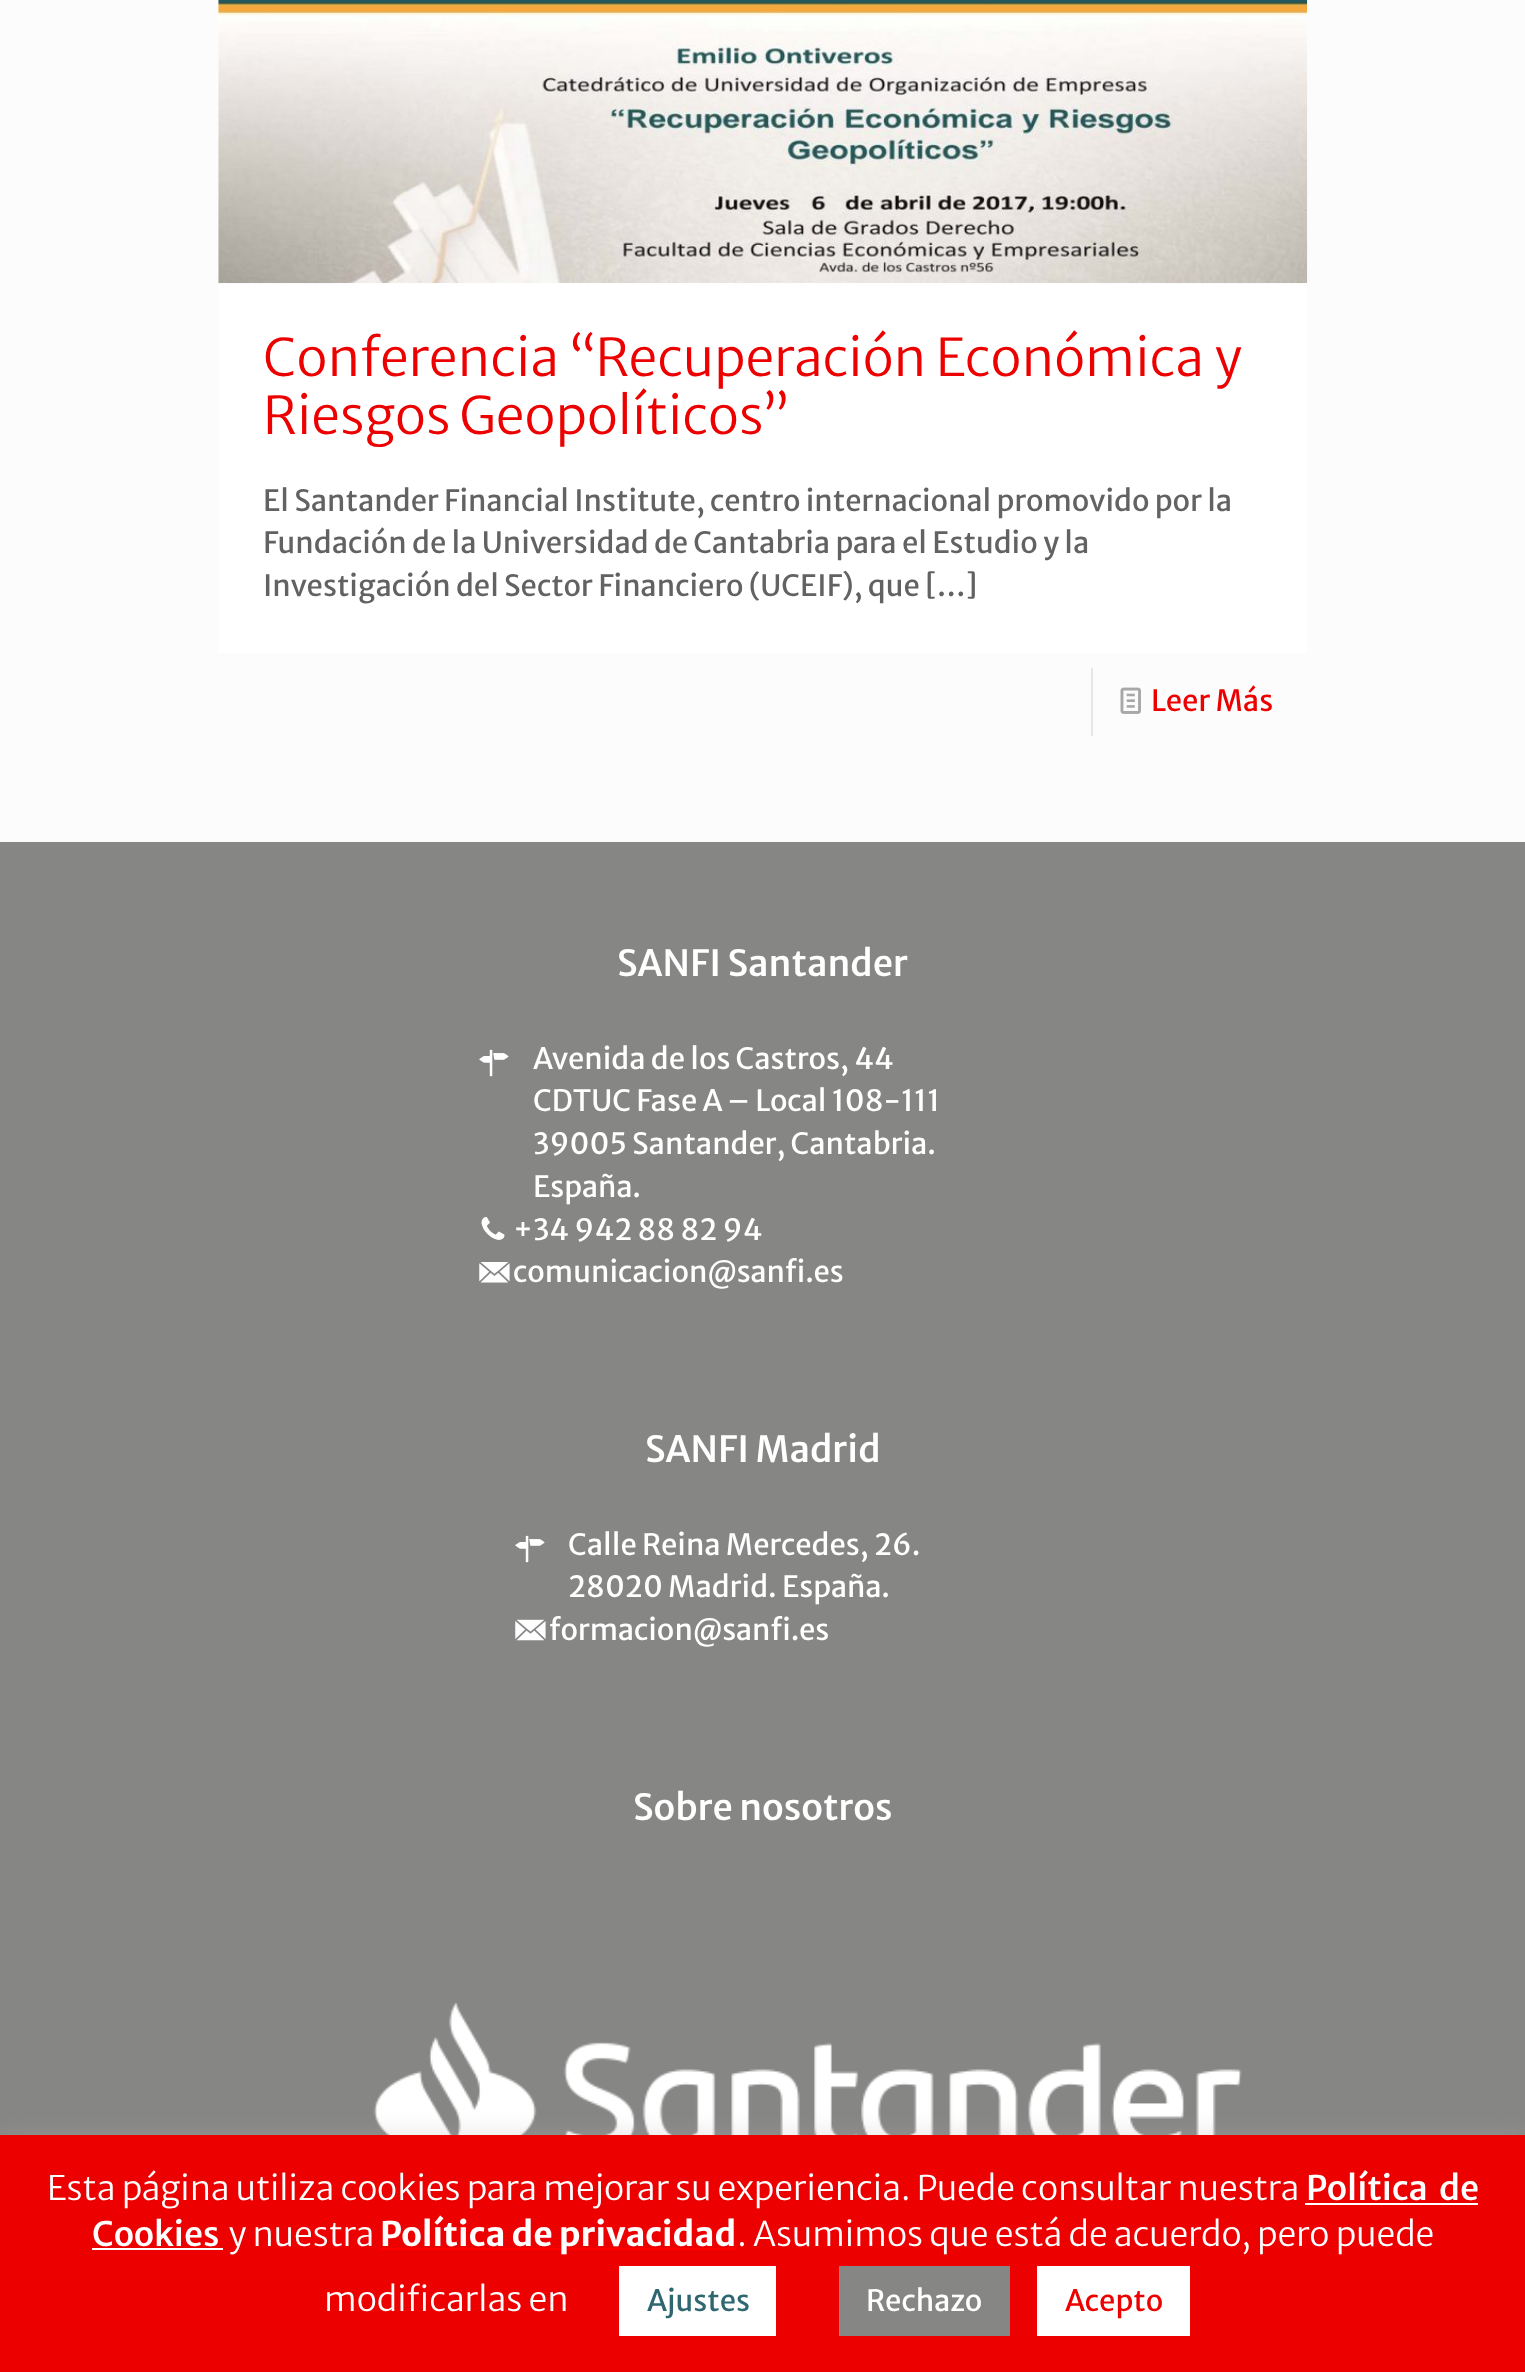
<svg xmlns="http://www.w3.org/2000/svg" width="1525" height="2372">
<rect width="100%" height="100%" fill="#fcfcfc"/>
<rect x="218" width="1089" height="653" fill="#fff"/>
<image x="218" y="0" width="1090" height="284" href="media/1.png"/>
<text x="263" y="376" style="font-family:Merriweather Sans;font-size:51.75px;font-weight:300;fill:#ec0000">Conferencia “Recuperación Económica y</text>
<text x="263" y="434" style="font-family:Merriweather Sans;font-size:51.75px;font-weight:300;fill:#ec0000">Riesgos Geopolíticos”</text>
<text x="263" y="511" style="font-family:Merriweather Sans;font-size:29.25px;fill:#626262">El Santander Financial Institute, centro internacional promovido por la</text>
<text x="263" y="553" style="font-family:Merriweather Sans;font-size:29.25px;fill:#626262">Fundación de la Universidad de Cantabria para el Estudio y la</text>
<text x="263" y="596" style="font-family:Merriweather Sans;font-size:29.25px;fill:#626262">Investigación del Sector Financiero (UCEIF), que […]</text>
<rect x="1091" y="668" width="2" height="68" fill="#e6e6e6"/>
<image x="1120" y="687" width="21" height="27" href="media/2.png"/>
<text x="1151" y="711" style="font-family:Merriweather Sans;font-size:29.25px;fill:#ec0000">Leer Más</text>
<rect y="842" width="1525" height="1293" fill="#868685"/>
<text x="617" y="976" style="font-family:Merriweather Sans;font-size:36px;font-weight:500;fill:#fff">SANFI Santander</text>
<image x="479" y="1049" width="30" height="28" href="media/3.png"/>
<text x="533" y="1069" style="font-family:Merriweather Sans;font-size:29.25px;fill:#fff">Avenida de los Castros, 44</text>
<text x="533" y="1111" style="font-family:Merriweather Sans;font-size:29.25px;fill:#fff">CDTUC Fase A – Local 108-111</text>
<text x="533" y="1154" style="font-family:Merriweather Sans;font-size:29.25px;fill:#fff">39005 Santander, Cantabria.</text>
<text x="533" y="1197" style="font-family:Merriweather Sans;font-size:29.25px;fill:#fff">España.</text>
<image x="481" y="1217" width="24" height="23" href="media/4.png"/>
<text x="513" y="1240" style="font-family:Merriweather Sans;font-size:29.25px;fill:#fff">+34 942 88 82 94</text>
<image x="479" y="1262" width="31" height="21" href="media/5.png"/>
<text x="513" y="1282" style="font-family:Merriweather Sans;font-size:29.25px;fill:#fff">comunicacion@sanfi.es</text>
<text x="645" y="1462" style="font-family:Merriweather Sans;font-size:36px;font-weight:500;fill:#fff">SANFI Madrid</text>
<image x="515" y="1535" width="30" height="28" href="media/3.png"/>
<text x="568" y="1555" style="font-family:Merriweather Sans;font-size:29.25px;fill:#fff">Calle Reina Mercedes, 26.</text>
<text x="568" y="1597" style="font-family:Merriweather Sans;font-size:29.25px;fill:#fff">28020 Madrid. España.</text>
<image x="515" y="1619" width="31" height="22" href="media/6.png"/>
<text x="549" y="1640" style="font-family:Merriweather Sans;font-size:29.25px;fill:#fff">formacion@sanfi.es</text>
<text x="633" y="1820" style="font-family:Merriweather Sans;font-size:36px;font-weight:500;fill:#fff">Sobre nosotros</text>
<image x="373" y="2002" width="869" height="133" href="media/7.png"/>
<rect y="2133" width="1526" height="239" fill="#acabab4d" filter="blur(11px)"/>
<rect y="2135" width="1525" height="237" fill="#ec0000"/>
<text x="47" y="2200" style="font-family:Merriweather Sans;font-size:33.75px;font-weight:300;fill:#fff">Esta página utiliza cookies para mejorar su experiencia. Puede consultar nuestra</text>
<text x="1306" y="2200" word-spacing="5" style="font-family:Merriweather Sans;font-size:33.75px;font-weight:500;fill:#fff">Política de</text>
<rect x="1305" y="2203" width="173" height="2" fill="#fff"/>
<text x="92" y="2246" style="font-family:Merriweather Sans;font-size:33.75px;font-weight:500;fill:#fff">Cookies</text>
<rect x="92" y="2248" width="131" height="2" fill="#fff"/>
<text x="228" y="2246" style="font-family:Merriweather Sans;font-size:33.75px;font-weight:300;fill:#fff">y nuestra</text>
<rect x="380" y="2248" width="356" height="2" fill="#f00"/>
<text x="380" y="2246" style="font-family:Merriweather Sans;font-size:33.75px;font-weight:bold;fill:#fff">Política de privacidad</text>
<text x="737" y="2246" style="font-family:Merriweather Sans;font-size:33.75px;font-weight:300;fill:#fff">. Asumimos que está de acuerdo, pero puede</text>
<text x="324" y="2311" style="font-family:Merriweather Sans;font-size:33.75px;font-weight:300;fill:#fff">modificarlas en</text>
<rect x="619" y="2266" width="157" height="70" fill="#fff"/>
<text x="647" y="2311" style="font-family:Merriweather Sans;font-size:29.25px;fill:#2f6770">Ajustes</text>
<rect x="839" y="2266" width="171" height="70" fill="#868685"/>
<text x="866" y="2311" style="font-family:Merriweather Sans;font-size:29.25px;fill:#fff">Rechazo</text>
<rect x="1037" y="2266" width="153" height="70" fill="#fff"/>
<text x="1065" y="2311" style="font-family:Merriweather Sans;font-size:29.25px;fill:#ec0000">Acepto</text>
</svg>
